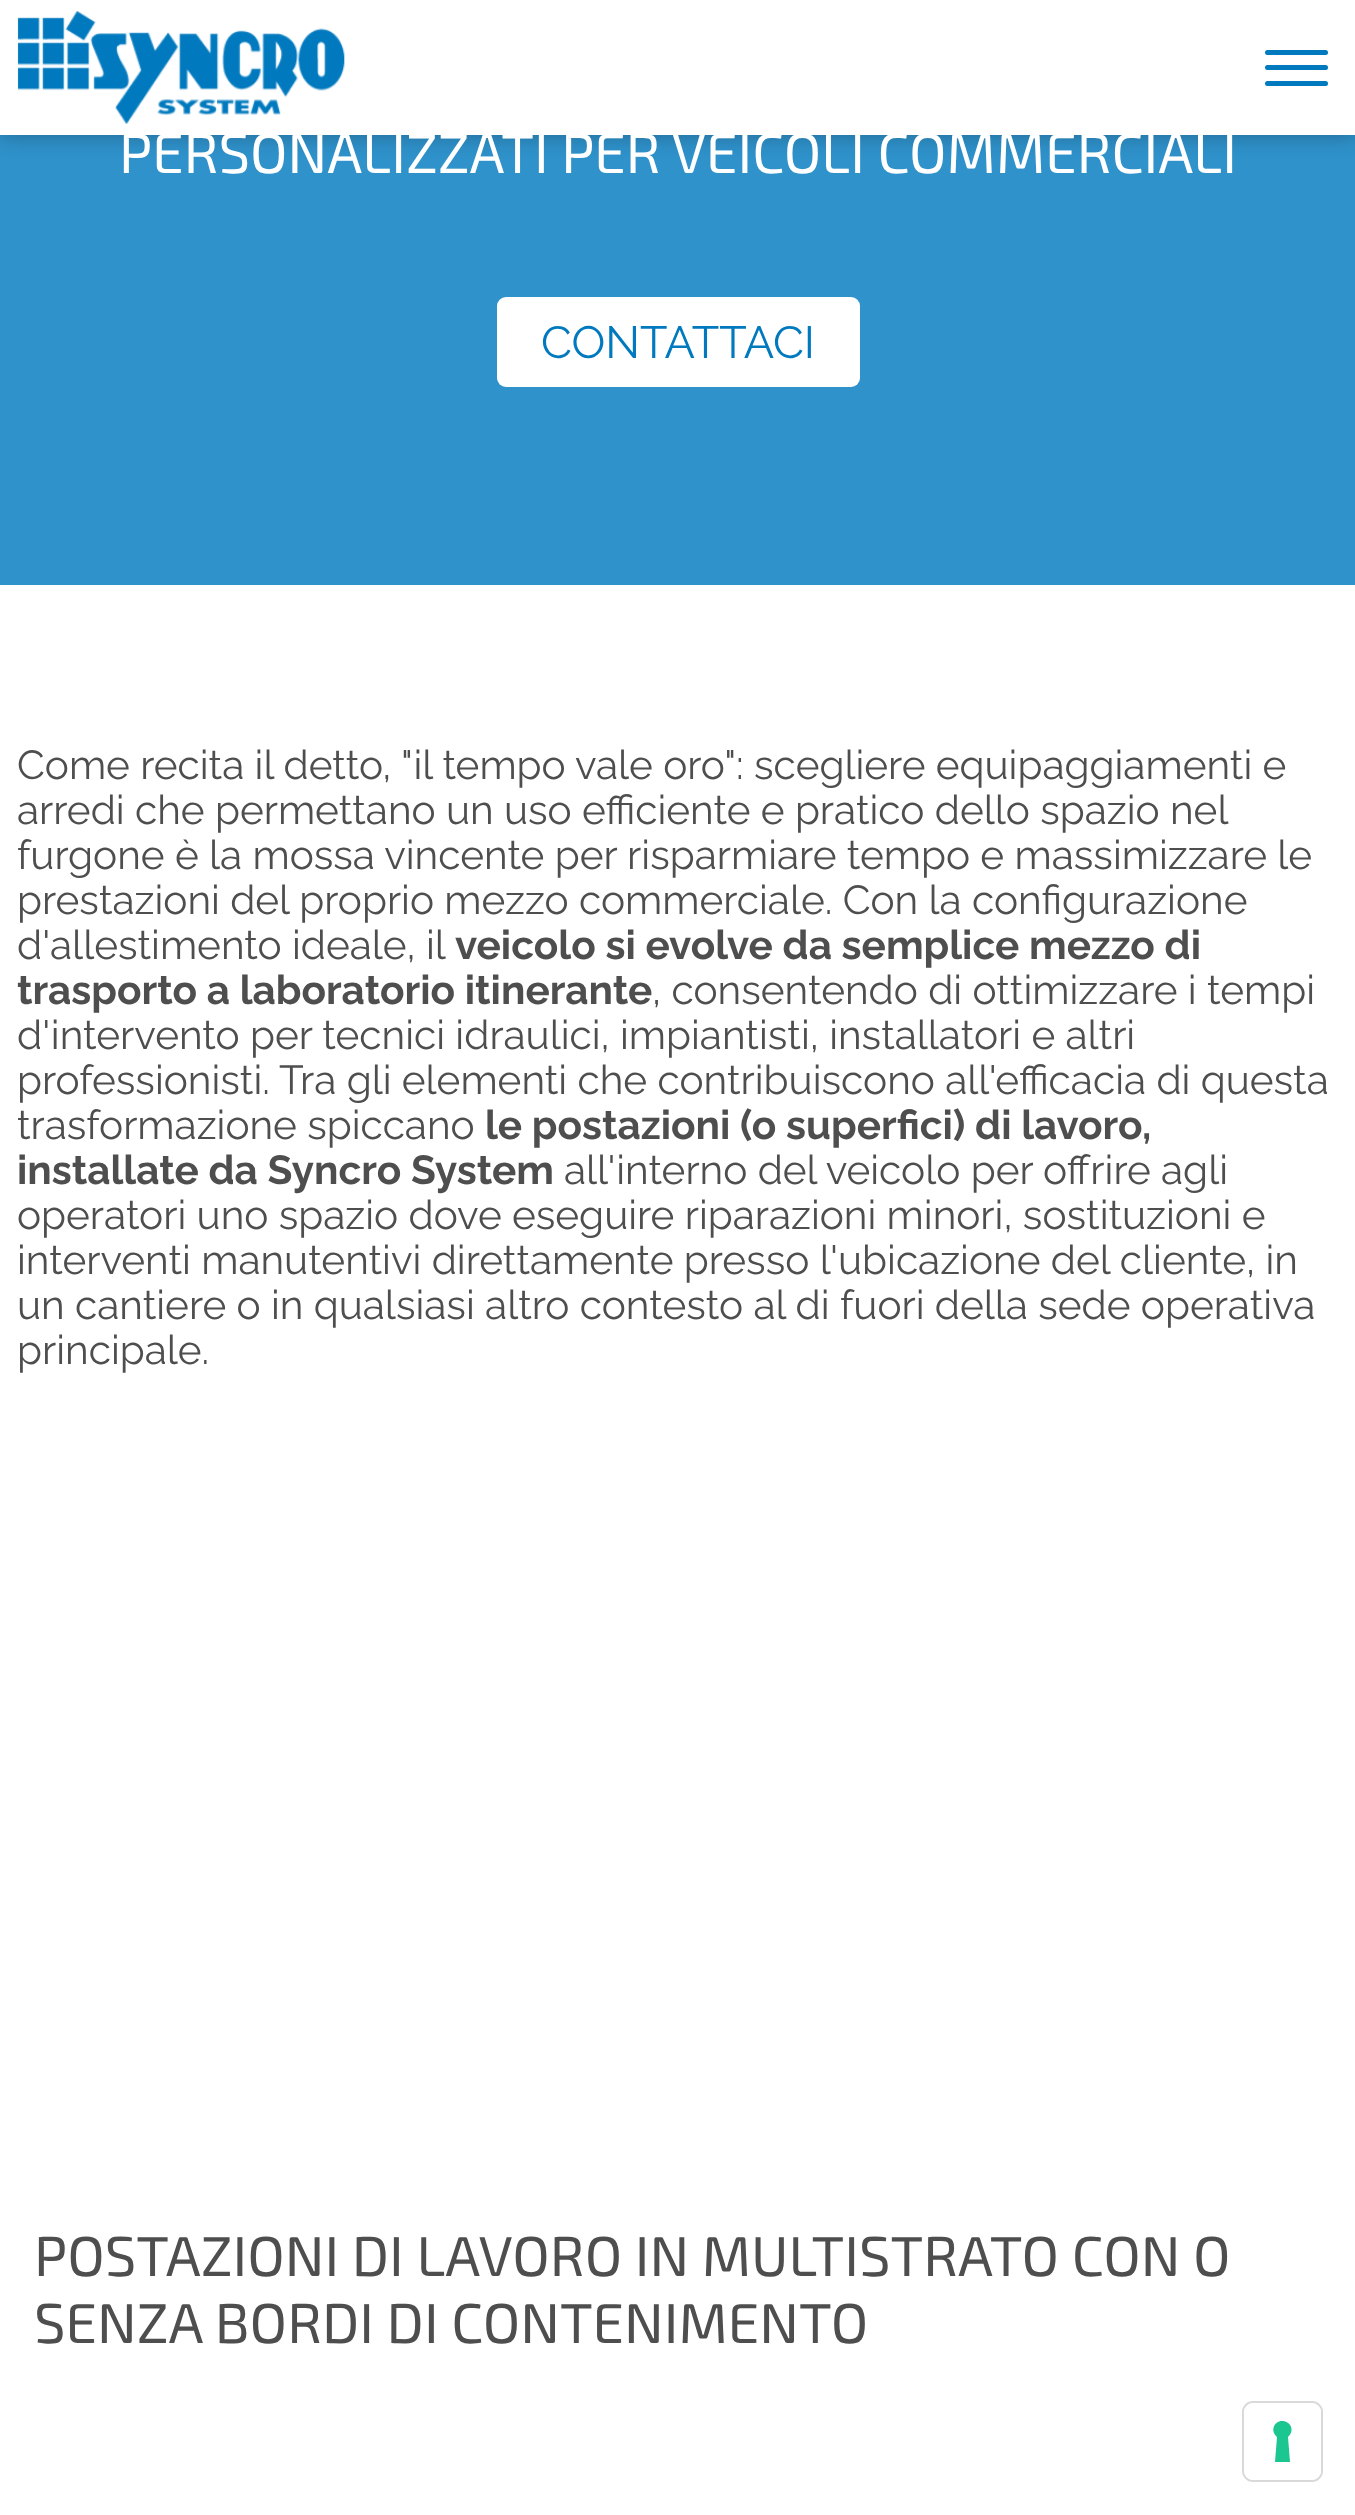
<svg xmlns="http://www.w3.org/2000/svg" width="1355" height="2515">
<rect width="100%" height="100%" fill="#fff"/>
<rect y="135" width="1355" height="450" fill="#2f92cb"/>
<rect width="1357" height="135" fill="#0000004d" filter="blur(11px)"/>
<rect width="1355" height="135" fill="#fff"/>
<image x="17" y="11" width="328" height="113" href="media/1.png"/>
<rect x="1265" y="50" width="63" height="5" rx="2.5" fill="#0079be"/>
<rect x="1265" y="65" width="63" height="5" rx="2.5" fill="#0079be"/>
<rect x="1265" y="81" width="63" height="5" rx="2.5" fill="#0079be"/>
<text x="119" y="173" style="font-family:'Exo 2';font-size:56.25px;fill:#fff">PERSONALIZZATI PER VEICOLI COMMERCIALI</text>
<rect x="497" y="297" width="363" height="90" rx="9" fill="#fff"/>
<text x="541" y="358" style="font-family:Raleway;font-size:45px;fill:#0079be">CONTATTACI</text>
<text x="17" y="779" style="font-family:Raleway;font-size:40.5px;fill:#4e4e4e">Come recita il detto, "il tempo vale oro": scegliere equipaggiamenti e</text>
<text x="17" y="824" style="font-family:Raleway;font-size:40.5px;fill:#4e4e4e">arredi che permettano un uso efficiente e pratico dello spazio nel</text>
<text x="17" y="869" style="font-family:Raleway;font-size:40.5px;fill:#4e4e4e">furgone è la mossa vincente per risparmiare tempo e massimizzare le</text>
<text x="17" y="914" style="font-family:Raleway;font-size:40.5px;fill:#4e4e4e">prestazioni del proprio mezzo commerciale. Con la configurazione</text>
<text x="17" y="959" style="font-family:Raleway;font-size:40.5px;fill:#4e4e4e">d'allestimento ideale, il</text>
<text x="455" y="959" style="font-family:Raleway;font-size:40.5px;font-weight:bold;fill:#4e4e4e">veicolo si evolve da semplice mezzo di</text>
<text x="17" y="1004" style="font-family:Raleway;font-size:40.5px;font-weight:bold;fill:#4e4e4e">trasporto a laboratorio itinerante</text>
<text x="652" y="1004" style="font-family:Raleway;font-size:40.5px;fill:#4e4e4e">, consentendo di ottimizzare i tempi</text>
<text x="17" y="1049" style="font-family:Raleway;font-size:40.5px;fill:#4e4e4e">d'intervento per tecnici idraulici, impiantisti, installatori e altri</text>
<text x="17" y="1094" style="font-family:Raleway;font-size:40.5px;fill:#4e4e4e">professionisti. Tra gli elementi che contribuiscono all'efficacia di questa</text>
<text x="17" y="1139" style="font-family:Raleway;font-size:40.5px;fill:#4e4e4e">trasformazione spiccano</text>
<text x="485" y="1139" style="font-family:Raleway;font-size:40.5px;font-weight:bold;fill:#4e4e4e">le postazioni (o superfici) di lavoro,</text>
<text x="17" y="1184" style="font-family:Raleway;font-size:40.5px;font-weight:bold;fill:#4e4e4e">installate da Syncro System</text>
<text x="564" y="1184" style="font-family:Raleway;font-size:40.5px;fill:#4e4e4e">all'interno del veicolo per offrire agli</text>
<text x="17" y="1229" style="font-family:Raleway;font-size:40.5px;fill:#4e4e4e">operatori uno spazio dove eseguire riparazioni minori, sostituzioni e</text>
<text x="17" y="1274" style="font-family:Raleway;font-size:40.5px;fill:#4e4e4e">interventi manutentivi direttamente presso l'ubicazione del cliente, in</text>
<text x="17" y="1319" style="font-family:Raleway;font-size:40.5px;fill:#4e4e4e">un cantiere o in qualsiasi altro contesto al di fuori della sede operativa</text>
<text x="17" y="1364" style="font-family:Raleway;font-size:40.5px;fill:#4e4e4e">principale.</text>
<text x="34" y="2276" style="font-family:'Exo 2';font-size:56.25px;fill:#4e4e4e">POSTAZIONI DI LAVORO IN MULTISTRATO CON O</text>
<text x="34" y="2343" style="font-family:'Exo 2';font-size:56.25px;fill:#4e4e4e">SENZA BORDI DI CONTENIMENTO</text>
<rect x="1243" y="2402" width="79" height="79" rx="10" fill="none" stroke="#d9d9d9" stroke-width="2"/>
<rect x="1244" y="2403" width="77" height="77" rx="9" fill="#fff"/>
<path d="M1282 2421c9 0 13 10 6 16l2 25h-15l2-25c-7-6-3-16 5-16z" fill="#1cc691" fill-rule="evenodd"/>
</svg>
